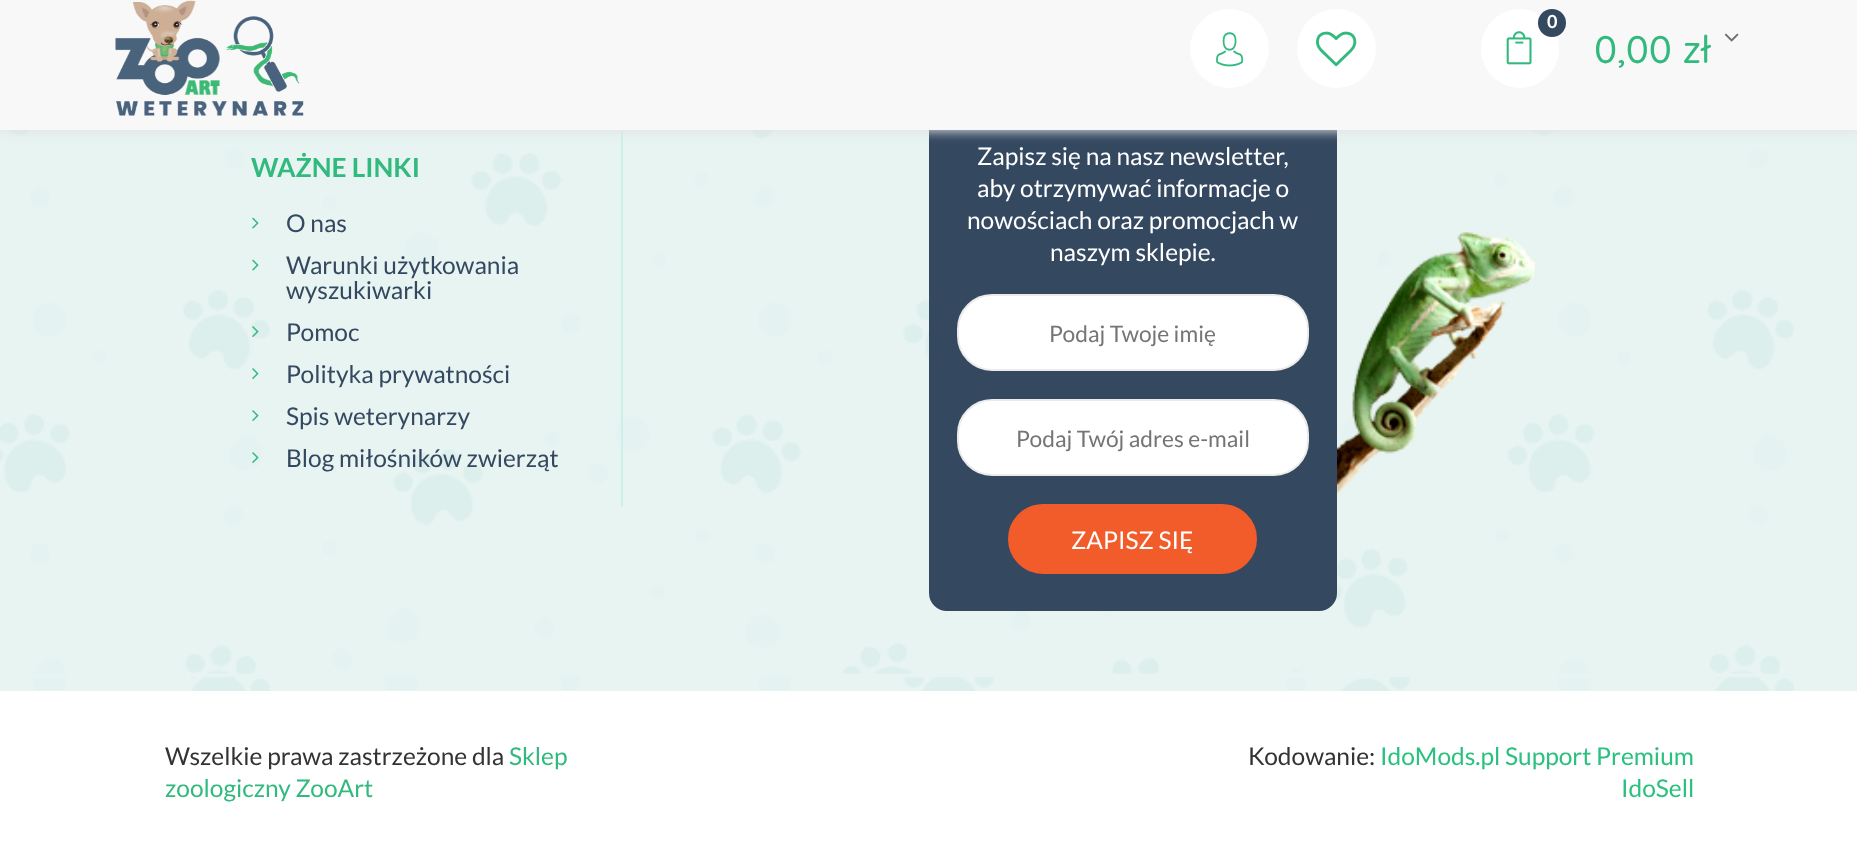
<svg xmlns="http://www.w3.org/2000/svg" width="1857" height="854">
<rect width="100%" height="100%" fill="#e8f4f2"/>
<image x="0" y="130" width="1794" height="561" href="media/6.png"/>
<rect x="621" y="131" width="2" height="375" fill="#cbf0e9"/>
<rect x="930" y="20" width="406" height="590" rx="17" fill="#344860" stroke="#344860" stroke-width="2"/>
<rect x="-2" y="-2" width="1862" height="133" fill="#e1e1e1" filter="blur(6px)"/>
<rect width="1857" height="130" fill="#f8f8f8"/>
<image x="115" y="0" width="189" height="116" href="media/1.png"/>
<circle cx="1229.5" cy="48.5" r="39.5" fill="#fff"/>
<image x="1216" y="32" width="28" height="35" href="media/2.png"/>
<circle cx="1336.5" cy="48.5" r="39.5" fill="#fff"/>
<image x="1316" y="31" width="41" height="36" href="media/3.png"/>
<rect x="1481" y="9" width="78" height="79" rx="39" fill="#fff"/>
<image x="1506" y="31" width="26" height="34" href="media/4.png"/>
<circle cx="1552" cy="23" r="14" fill="#344860"/>
<text x="1547" y="28" style="font-family:Lato;font-size:18px;font-weight:bold;fill:#fff">0</text>
<text x="1594" y="63" style="font-family:Quicksand;font-size:38.5px;font-weight:500;fill:#32b97e">0,00 zł</text>
<image x="1724" y="33" width="15" height="9" href="media/5.png"/>
<text x="251" y="177" style="font-family:Lato;font-size:26.25px;font-weight:bold;fill:#32b97e">WAŻNE LINKI</text>
<image x="252" y="217" width="7" height="12" href="media/7.png"/>
<text x="286" y="232" style="font-family:Lato;font-size:24.5px;fill:#344860">O nas</text>
<image x="252" y="259" width="7" height="12" href="media/7.png"/>
<text x="286" y="274" style="font-family:Lato;font-size:24.5px;fill:#344860">Warunki użytkowania</text>
<text x="286" y="299" style="font-family:Lato;font-size:24.5px;fill:#344860">wyszukiwarki</text>
<image x="252" y="326" width="7" height="11" href="media/8.png"/>
<text x="286" y="341" style="font-family:Lato;font-size:24.5px;fill:#344860">Pomoc</text>
<image x="252" y="368" width="7" height="11" href="media/9.png"/>
<text x="286" y="383" style="font-family:Lato;font-size:24.5px;fill:#344860">Polityka prywatności</text>
<image x="252" y="410" width="7" height="11" href="media/9.png"/>
<text x="286" y="425" style="font-family:Lato;font-size:24.5px;fill:#344860">Spis weterynarzy</text>
<image x="252" y="452" width="7" height="11" href="media/10.png"/>
<text x="286" y="467" style="font-family:Lato;font-size:24.5px;fill:#344860">Blog miłośników zwierząt</text>
<text x="977" y="165" style="font-family:Lato;font-size:24.5px;fill:#fff">Zapisz się na nasz newsletter,</text>
<text x="977" y="197" style="font-family:Lato;font-size:24.5px;fill:#fff">aby otrzymywać informacje o</text>
<text x="967" y="229" style="font-family:Lato;font-size:24.5px;fill:#fff">nowościach oraz promocjach w</text>
<text x="1050" y="261" style="font-family:Lato;font-size:24.5px;fill:#fff">naszym sklepie.</text>
<rect x="958" y="295" width="350" height="75" rx="34" fill="#fff" stroke="#ebebeb" stroke-width="2"/>
<text x="1049" y="342" style="font-family:Lato;font-size:22.75px;fill:#757575">Podaj Twoje imię</text>
<rect x="958" y="400" width="350" height="75" rx="34" fill="#fff" stroke="#ebebeb" stroke-width="2"/>
<text x="1016" y="447" style="font-family:Lato;font-size:22.75px;fill:#757575">Podaj Twój adres e-mail</text>
<rect x="1009" y="505" width="247" height="68" rx="34" fill="#f25b2a" stroke="#f25b2a" stroke-width="2"/>
<text x="1071" y="549" style="font-family:Lato;font-size:24.5px;fill:#fff">ZAPISZ SIĘ</text>
<image x="1337" y="231" width="200" height="264" href="media/11.png"/>
<rect y="691" width="1857" height="163" fill="#fff"/>
<text x="165" y="765" style="font-family:Lato;font-size:24.5px;fill:#333">Wszelkie prawa zastrzeżone dla</text>
<text x="509" y="765" style="font-family:Lato;font-size:24.5px;fill:#32b97e">Sklep</text>
<text x="165" y="797" style="font-family:Lato;font-size:24.5px;fill:#32b97e">zoologiczny ZooArt</text>
<text x="1248" y="765" style="font-family:Lato;font-size:24.5px;fill:#333">Kodowanie:</text>
<text x="1380" y="765" style="font-family:Lato;font-size:24.5px;fill:#2ac17f">IdoMods.pl Support Premium</text>
<text x="1621" y="797" style="font-family:Lato;font-size:24.5px;fill:#2ac17f">IdoSell</text>
</svg>
